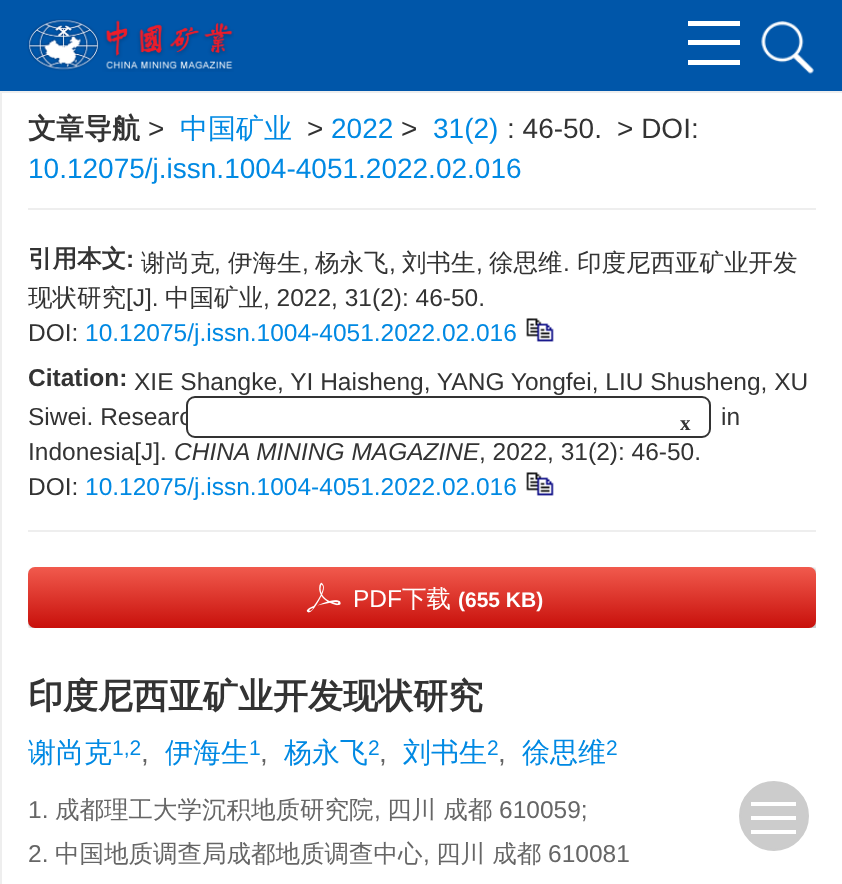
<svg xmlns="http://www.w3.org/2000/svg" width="842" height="884">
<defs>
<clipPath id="clip1"><rect x="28" y="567" width="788" height="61"/></clipPath>
<linearGradient id="g1" gradientUnits="userSpaceOnUse" x1="422" y1="567" x2="422" y2="628"><stop offset="0" stop-color="#f15a4d"/><stop offset="1" stop-color="#c8100b"/></linearGradient>
</defs>
<rect width="100%" height="100%" fill="#fff"/>
<rect width="842" height="91" fill="#0056a9"/>
<image x="27" y="19" width="207" height="53" href="media/1.png"/>
<rect x="688" y="21" width="52" height="5" fill="#fff"/>
<rect x="688" y="40" width="52" height="5" fill="#fff"/>
<rect x="688" y="60" width="52" height="5" fill="#fff"/>
<image x="761" y="21" width="53" height="53" href="media/2.png"/>
<rect x="1" y="92" width="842" height="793" fill="none" stroke="#eee" stroke-width="2"/>
<rect x="28" y="208" width="788" height="2" fill="#eee"/>
<text x="28" y="138" style="font-family:WenQuanYi Zen Hei;font-size:28px;font-weight:bold;fill:#333">文章导航</text>
<text x="148" y="138" style="font-family:Liberation Sans;font-size:28px;fill:#333">&gt;</text>
<text x="180" y="138" style="font-family:WenQuanYi Zen Hei;font-size:28px;font-weight:500;fill:#0089e3">中国矿业</text>
<text x="307" y="138" style="font-family:Liberation Sans;font-size:28px;fill:#333">&gt;</text>
<text x="331" y="138" style="font-family:Liberation Sans;font-size:28px;fill:#0089e3">2022</text>
<text x="401" y="138" style="font-family:Liberation Sans;font-size:28px;fill:#333">&gt;</text>
<text x="433" y="138" style="font-family:Liberation Sans;font-size:28px;fill:#0089e3">31(2)</text>
<text x="507" y="138" style="font-family:Liberation Sans;font-size:28px;fill:#333">: 46-50.</text>
<text x="617" y="138" style="font-family:Liberation Sans;font-size:28px;fill:#333">&gt; DOI:</text>
<text x="28" y="178" style="font-family:Liberation Sans;font-size:28px;fill:#0089e3">10.12075/j.issn.1004-4051.2022.02.016</text>
<rect x="28" y="530" width="788" height="2" fill="#eee"/>
<text x="28" y="267" style="font-family:WenQuanYi Zen Hei;font-size:24.5px;font-weight:bold;fill:#333">引用本文</text>
<text x="141" y="271" style="font-family:WenQuanYi Zen Hei;font-size:24.5px;font-weight:500;fill:#333">谢尚克</text>
<text x="214" y="271" style="font-family:Liberation Sans;font-size:24.5px;fill:#333">,</text>
<text x="228" y="271" style="font-family:WenQuanYi Zen Hei;font-size:24.5px;font-weight:500;fill:#333">伊海生</text>
<text x="302" y="271" style="font-family:Liberation Sans;font-size:24.5px;fill:#333">,</text>
<text x="315" y="271" style="font-family:WenQuanYi Zen Hei;font-size:24.5px;font-weight:500;fill:#333">杨永飞</text>
<text x="389" y="271" style="font-family:Liberation Sans;font-size:24.5px;fill:#333">,</text>
<text x="402" y="271" style="font-family:WenQuanYi Zen Hei;font-size:24.5px;font-weight:500;fill:#333">刘书生</text>
<text x="476" y="271" style="font-family:Liberation Sans;font-size:24.5px;fill:#333">,</text>
<text x="489" y="271" style="font-family:WenQuanYi Zen Hei;font-size:24.5px;font-weight:500;fill:#333">徐思维</text>
<text x="563" y="271" style="font-family:Liberation Sans;font-size:24.5px;fill:#333">.</text>
<text x="577" y="271" style="font-family:WenQuanYi Zen Hei;font-size:24.5px;font-weight:500;fill:#333">印度尼西亚矿业开发</text>
<text x="28" y="306" style="font-family:WenQuanYi Zen Hei;font-size:24.5px;font-weight:500;fill:#333">现状研究</text>
<text x="126" y="306" style="font-family:Liberation Sans;font-size:24.5px;fill:#333">[J].</text>
<text x="165" y="306" style="font-family:WenQuanYi Zen Hei;font-size:24.5px;font-weight:500;fill:#333">中国矿业</text>
<text x="263" y="306" style="font-family:Liberation Sans;font-size:24.5px;fill:#333">, 2022, 31(2): 46-50.</text>
<text x="28" y="341" style="font-family:Liberation Sans;font-size:24.5px;fill:#333">DOI:</text>
<text x="85" y="341" style="font-family:Liberation Sans;font-size:24.5px;fill:#0089e3">10.12075/j.issn.1004-4051.2022.02.016</text>
<image x="526" y="318" width="28" height="24" href="media/3.png"/>
<text x="126" y="267" style="font-family:Liberation Sans;font-size:24.5px;font-weight:bold;fill:#333">:</text>
<text x="28" y="386" style="font-family:Liberation Sans;font-size:24.5px;font-weight:bold;fill:#333">Citation:</text>
<text x="134" y="390" style="font-family:Liberation Sans;font-size:24.5px;fill:#333">XIE Shangke, YI Haisheng, YANG Yongfei, LIU Shusheng, XU</text>
<text x="28" y="425" style="font-family:Liberation Sans;font-size:24.5px;fill:#333">Siwei. Researc</text>
<text x="721" y="425" style="font-family:Liberation Sans;font-size:24.5px;fill:#333">in</text>
<text x="28" y="460" style="font-family:Liberation Sans;font-size:24.5px;fill:#333">Indonesia[J].</text>
<text x="174" y="460" style="font-family:Liberation Sans;font-size:24.5px;font-style:italic;fill:#333">CHINA MINING MAGAZINE</text>
<text x="479" y="460" style="font-family:Liberation Sans;font-size:24.5px;fill:#333">, 2022, 31(2): 46-50.</text>
<text x="28" y="495" style="font-family:Liberation Sans;font-size:24.5px;fill:#333">DOI:</text>
<text x="85" y="495" style="font-family:Liberation Sans;font-size:24.5px;fill:#0089e3">10.12075/j.issn.1004-4051.2022.02.016</text>
<image x="526" y="472" width="28" height="24" href="media/3.png"/>
<g clip-path="url(#clip1)">
<rect x="28" y="567" width="791" height="65" rx="9" fill="#00000033" filter="blur(1px)"/>
</g>
<rect x="28" y="567" width="788" height="61" rx="7" fill="url(#g1)"/>
<image x="306" y="582" width="35" height="31" href="media/4.png"/>
<text x="353" y="607" style="font-family:Liberation Sans;font-size:24.5px;fill:#fff">PDF</text>
<text x="402" y="607" style="font-family:WenQuanYi Zen Hei;font-size:24.5px;font-weight:500;fill:#fff">下载</text>
<text x="458" y="607" style="font-family:Liberation Sans;font-size:21px;font-weight:bold;fill:#fff">(655 KB)</text>
<text x="28" y="708" style="font-family:WenQuanYi Zen Hei;font-size:35px;font-weight:bold;fill:#333">印度尼西亚矿业开发现状研究</text>
<text x="28" y="762" style="font-family:WenQuanYi Zen Hei;font-size:28px;font-weight:500;fill:#0089e3">谢尚克</text>
<text x="112" y="755" style="font-family:Liberation Sans;font-size:21px;fill:#0089e3">1,2</text>
<text x="141" y="762" style="font-family:Liberation Sans;font-size:28px;fill:#666">,</text>
<text x="165" y="762" style="font-family:WenQuanYi Zen Hei;font-size:28px;font-weight:500;fill:#0089e3">伊海生</text>
<text x="249" y="755" style="font-family:Liberation Sans;font-size:21px;fill:#0089e3">1</text>
<text x="260" y="762" style="font-family:Liberation Sans;font-size:28px;fill:#666">,</text>
<text x="284" y="762" style="font-family:WenQuanYi Zen Hei;font-size:28px;font-weight:500;fill:#0089e3">杨永飞</text>
<text x="368" y="755" style="font-family:Liberation Sans;font-size:21px;fill:#0089e3">2</text>
<text x="379" y="762" style="font-family:Liberation Sans;font-size:28px;fill:#666">,</text>
<text x="403" y="762" style="font-family:WenQuanYi Zen Hei;font-size:28px;font-weight:500;fill:#0089e3">刘书生</text>
<text x="487" y="755" style="font-family:Liberation Sans;font-size:21px;fill:#0089e3">2</text>
<text x="498" y="762" style="font-family:Liberation Sans;font-size:28px;fill:#666">,</text>
<text x="522" y="762" style="font-family:WenQuanYi Zen Hei;font-size:28px;font-weight:500;fill:#0089e3">徐思维</text>
<text x="606" y="755" style="font-family:Liberation Sans;font-size:21px;fill:#0089e3">2</text>
<text x="28" y="818" style="font-family:Liberation Sans;font-size:24.5px;fill:#666">1.</text>
<text x="55" y="818" style="font-family:WenQuanYi Zen Hei;font-size:24.5px;font-weight:500;fill:#666">成都理工大学沉积地质研究院</text>
<text x="374" y="818" style="font-family:Liberation Sans;font-size:24.5px;fill:#666">,</text>
<text x="387" y="818" style="font-family:WenQuanYi Zen Hei;font-size:24.5px;font-weight:500;fill:#666">四川 成都</text>
<text x="499" y="818" style="font-family:Liberation Sans;font-size:24.5px;fill:#666">610059;</text>
<text x="28" y="862" style="font-family:Liberation Sans;font-size:24.5px;fill:#666">2.</text>
<text x="55" y="862" style="font-family:WenQuanYi Zen Hei;font-size:24.5px;font-weight:500;fill:#666">中国地质调查局成都地质调查中心</text>
<text x="423" y="862" style="font-family:Liberation Sans;font-size:24.5px;fill:#666">,</text>
<text x="436" y="862" style="font-family:WenQuanYi Zen Hei;font-size:24.5px;font-weight:500;fill:#666">四川 成都</text>
<text x="548" y="862" style="font-family:Liberation Sans;font-size:24.5px;fill:#666">610081</text>
<circle cx="774" cy="816" r="34" fill="#ccc" stroke="#ccc" stroke-width="2"/>
<rect x="751" y="802" width="45" height="4" fill="#fff"/>
<rect x="751" y="816" width="45" height="4" fill="#fff"/>
<rect x="751" y="830" width="45" height="4" fill="#fff"/>
<rect x="187" y="397" width="523" height="40" rx="8" fill="#fff" stroke="#333" stroke-width="2"/>
<text x="680" y="430" style="font-family:Liberation Serif;font-size:21px;font-weight:bold;fill:#333">x</text>
</svg>
